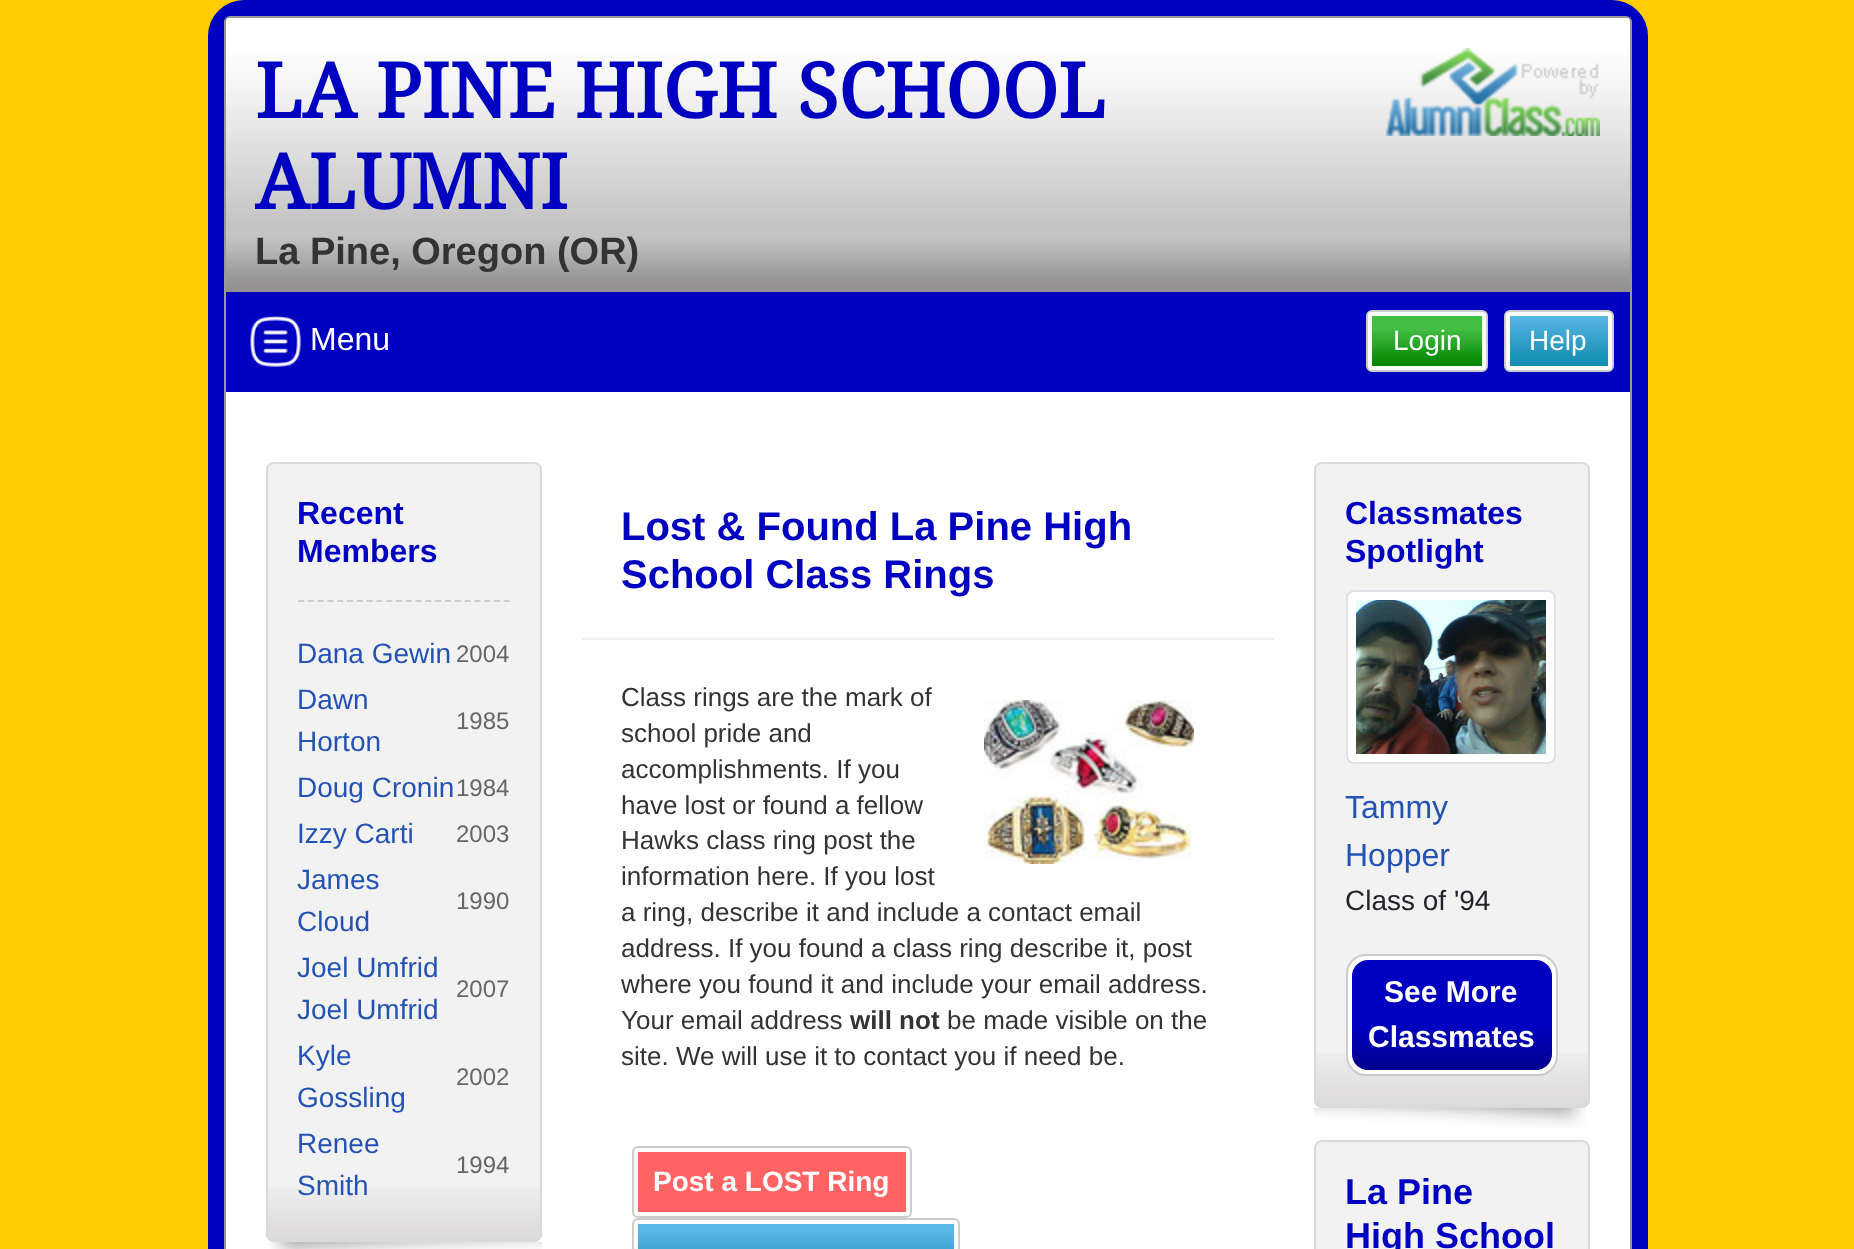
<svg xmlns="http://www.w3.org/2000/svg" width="1854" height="1249">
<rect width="100%" height="100%" fill="#fc0"/>
<rect x="216" y="8" width="1424" height="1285" rx="28" fill="none" stroke="#0000c1" stroke-width="16"/>
<rect x="225" y="17" width="1406" height="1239" rx="5" fill="#fff" stroke="#999" stroke-width="2"/>
<image x="226" y="54" width="1404" height="238" href="media/1.png"/>
<text x="255" y="118" style="font-family:Droid Serif;font-size:76px;font-weight:bold;fill:#0000c1">LA PINE HIGH SCHOOL</text>
<text x="255" y="209" style="font-family:Droid Serif;font-size:76px;font-weight:bold;fill:#0000c1">ALUMNI</text>
<text x="255" y="264" style="font-family:Liberation Sans;font-size:38px;font-weight:bold;fill:#333">La Pine, Oregon (OR)</text>
<image x="1386" y="48" width="214" height="88" href="media/2.png"/>
<rect x="226" y="292" width="1404" height="100" fill="#0000c1"/>
<image x="250" y="316" width="51" height="51" href="media/3.png"/>
<text x="310" y="350" style="font-family:Liberation Sans;font-size:32px;fill:#fff">Menu</text>
<rect x="1367" y="311" width="120" height="60" rx="5" fill="#fff" stroke="#ccc" stroke-width="2"/>
<rect x="1372" y="316" width="110" height="15" fill="#42be42"/>
<image x="1372" y="331" width="110" height="35" href="media/4.png"/>
<text x="1393" y="350" style="font-family:Liberation Sans;font-size:28px;fill:#fff">Login</text>
<rect x="1505" y="311" width="108" height="60" rx="5" fill="#fff" stroke="#ccc" stroke-width="2"/>
<image x="1510" y="316" width="98" height="50" href="media/5.png"/>
<text x="1529" y="350" style="font-family:Liberation Sans;font-size:28px;fill:#fff">Help</text>
<image x="269" y="1242" width="273" height="7" href="media/6.png"/>
<rect x="266" y="462" width="276" height="780" rx="8" fill="#f2f2f2"/>
<image x="266" y="1187" width="276" height="53" href="media/7.png"/>
<rect x="267" y="463" width="274" height="778" rx="7" fill="none" stroke="#dadada" stroke-width="2"/>
<text x="297" y="524" style="font-family:Liberation Sans;font-size:32px;font-weight:bold;fill:#0000c1">Recent</text>
<text x="297" y="562" style="font-family:Liberation Sans;font-size:32px;font-weight:bold;fill:#0000c1">Members</text>
<path d="M298 601h212" fill="none" stroke="#ccc" stroke-width="2" stroke-dasharray="6 3.8"/>
<text x="297" y="663" style="font-family:Liberation Sans;font-size:28px;fill:#2553b5">Dana Gewin</text>
<text x="456" y="662" style="font-family:Liberation Sans;font-size:24px;fill:#666">2004</text>
<text x="297" y="709" style="font-family:Liberation Sans;font-size:28px;fill:#2553b5">Dawn</text>
<text x="297" y="751" style="font-family:Liberation Sans;font-size:28px;fill:#2553b5">Horton</text>
<text x="456" y="729" style="font-family:Liberation Sans;font-size:24px;fill:#666">1985</text>
<text x="297" y="797" style="font-family:Liberation Sans;font-size:28px;fill:#2553b5">Doug Cronin</text>
<text x="456" y="796" style="font-family:Liberation Sans;font-size:24px;fill:#666">1984</text>
<text x="297" y="843" style="font-family:Liberation Sans;font-size:28px;fill:#2553b5">Izzy Carti</text>
<text x="456" y="842" style="font-family:Liberation Sans;font-size:24px;fill:#666">2003</text>
<text x="297" y="889" style="font-family:Liberation Sans;font-size:28px;fill:#2553b5">James</text>
<text x="297" y="931" style="font-family:Liberation Sans;font-size:28px;fill:#2553b5">Cloud</text>
<text x="456" y="909" style="font-family:Liberation Sans;font-size:24px;fill:#666">1990</text>
<text x="297" y="977" style="font-family:Liberation Sans;font-size:28px;fill:#2553b5">Joel Umfrid</text>
<text x="297" y="1019" style="font-family:Liberation Sans;font-size:28px;fill:#2553b5">Joel Umfrid</text>
<text x="456" y="997" style="font-family:Liberation Sans;font-size:24px;fill:#666">2007</text>
<text x="297" y="1065" style="font-family:Liberation Sans;font-size:28px;fill:#2553b5">Kyle</text>
<text x="297" y="1107" style="font-family:Liberation Sans;font-size:28px;fill:#2553b5">Gossling</text>
<text x="456" y="1085" style="font-family:Liberation Sans;font-size:24px;fill:#666">2002</text>
<text x="297" y="1153" style="font-family:Liberation Sans;font-size:28px;fill:#2553b5">Renee</text>
<text x="297" y="1195" style="font-family:Liberation Sans;font-size:28px;fill:#2553b5">Smith</text>
<text x="456" y="1173" style="font-family:Liberation Sans;font-size:24px;fill:#666">1994</text>
<rect x="582" y="638" width="692" height="2" fill="#eee"/>
<text x="621" y="540" style="font-family:Liberation Sans;font-size:40px;font-weight:bold;fill:#0000c1">Lost &amp; Found La Pine High</text>
<text x="621" y="588" style="font-family:Liberation Sans;font-size:40px;font-weight:bold;fill:#0000c1">School Class Rings</text>
<text x="621" y="706" style="font-family:Liberation Sans;font-size:26px;fill:#333">Class rings are the mark of</text>
<text x="621" y="742" style="font-family:Liberation Sans;font-size:26px;fill:#333">school pride and</text>
<text x="621" y="778" style="font-family:Liberation Sans;font-size:26px;fill:#333">accomplishments. If you</text>
<text x="621" y="814" style="font-family:Liberation Sans;font-size:26px;fill:#333">have lost or found a fellow</text>
<text x="621" y="849" style="font-family:Liberation Sans;font-size:26px;fill:#333">Hawks class ring post the</text>
<text x="621" y="885" style="font-family:Liberation Sans;font-size:26px;fill:#333">information here. If you lost</text>
<text x="621" y="921" style="font-family:Liberation Sans;font-size:26px;fill:#333">a ring, describe it and include a contact email</text>
<text x="621" y="957" style="font-family:Liberation Sans;font-size:26px;fill:#333">address. If you found a class ring describe it, post</text>
<text x="621" y="993" style="font-family:Liberation Sans;font-size:26px;fill:#333">where you found it and include your email address.</text>
<text x="621" y="1029" style="font-family:Liberation Sans;font-size:26px;fill:#333">Your email address</text>
<text x="850" y="1029" style="font-family:Liberation Sans;font-size:26px;font-weight:bold;fill:#333">will not</text>
<text x="947" y="1029" style="font-family:Liberation Sans;font-size:26px;fill:#333">be made visible on the</text>
<text x="621" y="1065" style="font-family:Liberation Sans;font-size:26px;fill:#333">site. We will use it to contact you if need be.</text>
<image x="984" y="700" width="210" height="164" href="media/8.png"/>
<rect x="633" y="1147" width="278" height="70" rx="5" fill="none" stroke="#ccc" stroke-width="2"/>
<rect x="638" y="1152" width="268" height="60" fill="#ff6363"/>
<text x="653" y="1191" style="font-family:Liberation Sans;font-size:28px;font-weight:bold;fill:#fff">Post a LOST Ring</text>
<rect x="633" y="1219" width="326" height="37" rx="5" fill="none" stroke="#ccc" stroke-width="2"/>
<rect x="638" y="1224" width="316" height="8" fill="#59b6e7"/>
<image x="638" y="1232" width="316" height="17" href="media/9.png"/>
<image x="1314" y="1108" width="273" height="20" href="media/10.png"/>
<rect x="1314" y="462" width="276" height="646" rx="8" fill="#f2f2f2"/>
<image x="1314" y="1053" width="276" height="53" href="media/7.png"/>
<rect x="1315" y="463" width="274" height="644" rx="7" fill="none" stroke="#dadada" stroke-width="2"/>
<text x="1345" y="524" style="font-family:Liberation Sans;font-size:32px;font-weight:bold;fill:#0000c1">Classmates</text>
<text x="1345" y="562" style="font-family:Liberation Sans;font-size:32px;font-weight:bold;fill:#0000c1">Spotlight</text>
<rect x="1347" y="591" width="208" height="172" rx="7" fill="#fff" stroke="#dee2e6" stroke-width="2"/>
<image x="1356" y="600" width="190" height="154" href="media/11.png"/>
<text x="1345" y="818" style="font-family:Liberation Sans;font-size:32px;fill:#2553b5">Tammy</text>
<text x="1345" y="866" style="font-family:Liberation Sans;font-size:32px;fill:#2553b5">Hopper</text>
<text x="1345" y="910" style="font-family:Liberation Sans;font-size:28px;fill:#212529">Class of '94</text>
<rect x="1347" y="955" width="210" height="120" rx="19" fill="#fff" stroke="#ccc" stroke-width="2"/>
<rect x="1352" y="960" width="200" height="110" rx="16" fill="#0000c1"/>
<image x="1352" y="1028" width="200" height="42" href="media/12.png"/>
<text x="1384" y="1002" style="font-family:Liberation Sans;font-size:30px;font-weight:bold;fill:#fff">See More</text>
<text x="1368" y="1047" style="font-family:Liberation Sans;font-size:30px;font-weight:bold;fill:#fff">Classmates</text>
<rect x="1315" y="1141" width="274" height="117" rx="7" fill="#f2f2f2" stroke="#dadada" stroke-width="2"/>
<text x="1345" y="1204" style="font-family:Liberation Sans;font-size:36px;font-weight:bold;fill:#0000c1">La Pine</text>
<text x="1345" y="1248" style="font-family:Liberation Sans;font-size:36px;font-weight:bold;fill:#0000c1">High School</text>
</svg>
